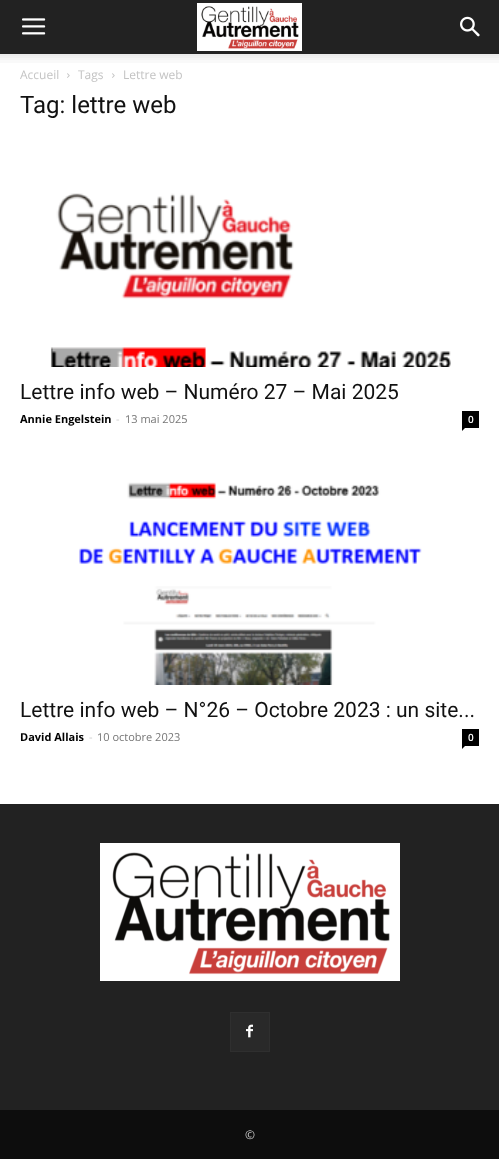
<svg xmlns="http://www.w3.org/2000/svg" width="499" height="1168">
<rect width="100%" height="100%" fill="#fff"/>
<rect width="499" height="54" fill="#222"/>
<image x="22" y="18" width="24" height="17" href="media/1.png"/>
<image x="197" y="3" width="105" height="48" href="media/2.png"/>
<image x="460" y="16" width="20" height="21" href="media/3.png"/>
<image x="0" y="54" width="499" height="9" href="media/4.png"/>
<text x="20" y="79" style="font-family:Open Sans;font-size:12px;fill:#c3c3c3">Accueil</text>
<image x="67" y="73" width="3" height="5" href="media/5.png"/>
<text x="78" y="79" style="font-family:Open Sans;font-size:12px;fill:#c3c3c3">Tags</text>
<image x="112" y="73" width="3" height="5" href="media/5.png"/>
<text x="123" y="79" style="font-family:Open Sans;font-size:12px;fill:#c3c3c3">Lettre web</text>
<text x="20" y="113" style="font-family:Roboto;font-size:24px;fill:#111">Tag: lettre web</text>
<image x="50" y="193" width="401" height="174" href="media/6.png"/>
<text x="20" y="399" style="font-family:Roboto;font-size:21px;fill:#111">Lettre info web – Numéro 27 – Mai 2025</text>
<text x="20" y="423" style="font-family:Open Sans;font-size:11px;font-weight:bold;fill:#000">Annie Engelstein</text>
<text x="116" y="423" style="font-family:Open Sans;font-size:11px;fill:#ccc">-</text>
<text x="125" y="423" style="font-family:Open Sans;font-size:11px;fill:#767676">13 mai 2025</text>
<rect x="462" y="411" width="17" height="17" fill="#000"/>
<text x="468" y="423" style="font-family:Open Sans;font-size:10px;font-weight:600;fill:#fff">0</text>
<path d="M462 428h3l-3 3z" fill="#000"/>
<image x="79" y="482" width="343" height="203" href="media/7.png"/>
<text x="20" y="717" style="font-family:Roboto;font-size:21px;fill:#111">Lettre info web – N°26 – Octobre 2023 : un site...</text>
<text x="20" y="741" style="font-family:Open Sans;font-size:11px;font-weight:bold;fill:#000">David Allais</text>
<text x="89" y="741" style="font-family:Open Sans;font-size:11px;fill:#ccc">-</text>
<text x="97" y="741" style="font-family:Open Sans;font-size:11px;fill:#767676">10 octobre 2023</text>
<rect x="462" y="729" width="17" height="17" fill="#000"/>
<text x="468" y="741" style="font-family:Open Sans;font-size:10px;font-weight:600;fill:#fff">0</text>
<path d="M462 746h3l-3 3z" fill="#000"/>
<rect y="804" width="499" height="306" fill="#222"/>
<image x="100" y="843" width="300" height="138" href="media/8.png"/>
<rect x="231" y="1013" width="38" height="38" fill="#292929"/>
<image x="246" y="1024" width="7" height="14" href="media/9.png"/>
<rect x="230.5" y="1012.5" width="39" height="39" fill="none" stroke="#2f2f2f"/>
<rect y="1110" width="499" height="49" fill="#0d0d0d"/>
<text x="245" y="1139" style="font-family:Open Sans;font-size:12px;fill:#ccc">©</text>
</svg>
